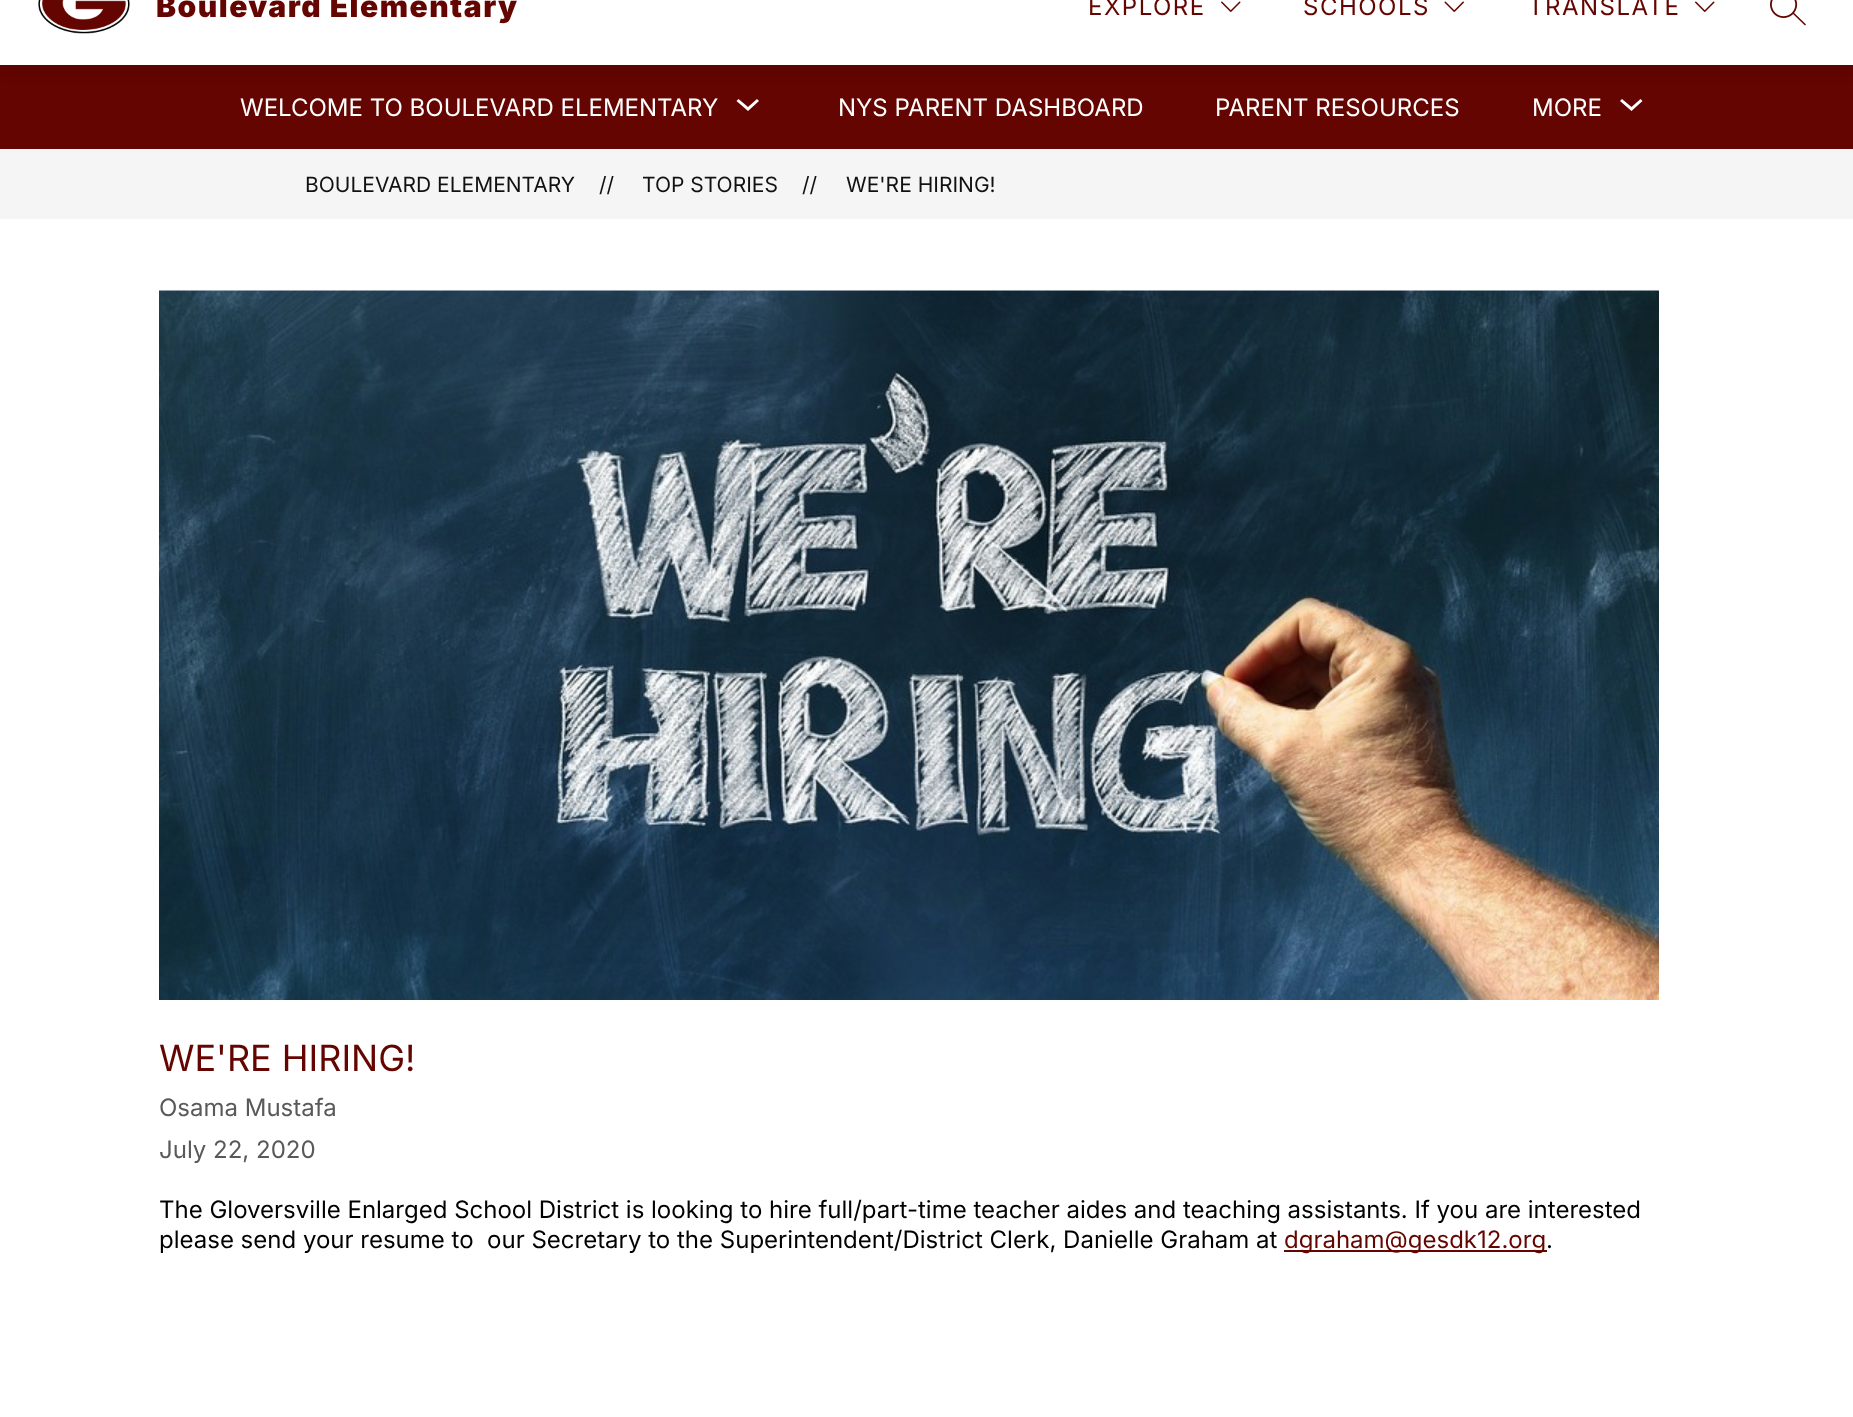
<svg xmlns="http://www.w3.org/2000/svg" width="1853" height="1417">
<rect width="100%" height="100%" fill="#fff"/>
<rect y="65" width="1853" height="84" fill="#640501"/>
<rect y="-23" width="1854" height="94" fill="#0000001a" filter="blur(7.5px)"/>
<rect width="1853" height="65" fill="#fff"/>
<image x="38" y="0" width="92" height="34" href="media/1.png"/>
<text x="156" y="17" style="font-family:Inter;font-size:30px;font-weight:900;letter-spacing:1.5px;fill:#640501">Boulevard Elementary</text>
<text x="1088" y="15" style="font-family:Inter;font-size:24px;letter-spacing:1.5px;fill:#640501">EXPLORE</text>
<image x="1221" y="1" width="20" height="11" href="media/2.png"/>
<text x="1303" y="15" style="font-family:Inter;font-size:24px;letter-spacing:1.5px;fill:#640501">SCHOOLS</text>
<image x="1444" y="1" width="20" height="11" href="media/3.png"/>
<text x="1528" y="15" style="font-family:Inter;font-size:24px;letter-spacing:1.5px;fill:#640501">TRANSLATE</text>
<image x="1695" y="1" width="20" height="11" href="media/2.png"/>
<image x="1770" y="0" width="36" height="26" href="media/4.png"/>
<text x="240" y="116" style="font-family:Inter;font-size:24px;fill:#fff">WELCOME TO BOULEVARD ELEMENTARY</text>
<path d="M757 99l-9 8l-9.5-8l-2 2l11.5 10l11-10z" fill="#fff" fill-rule="evenodd"/>
<text x="838" y="116" style="font-family:Inter;font-size:24px;fill:#fff">NYS PARENT DASHBOARD</text>
<text x="1215" y="116" style="font-family:Inter;font-size:24px;fill:#fff">PARENT RESOURCES</text>
<text x="1532" y="116" style="font-family:Inter;font-size:24px;fill:#fff">MORE</text>
<path d="M1640.5 99l-9 8l-9.5-8l-2 2l11.5 10l11-10z" fill="#fff" fill-rule="evenodd"/>
<rect y="149" width="1853" height="70" fill="#f5f5f5"/>
<text x="305" y="192" style="font-family:Inter;font-size:21px;fill:#111">BOULEVARD ELEMENTARY</text>
<text x="599" y="192" style="font-family:Inter;font-size:21px;fill:#111">//</text>
<text x="642" y="192" style="font-family:Inter;font-size:21px;fill:#111">TOP STORIES</text>
<text x="802" y="192" style="font-family:Inter;font-size:21px;fill:#111">//</text>
<text x="846" y="192" style="font-family:Inter;font-size:21px;fill:#111">WE'RE HIRING!</text>
<image x="159" y="290" width="1500" height="710" href="media/5.png"/>
<text x="159" y="1071" style="font-family:Inter;font-size:36px;fill:#640501">WE'RE HIRING!</text>
<text x="159" y="1116" style="font-family:Inter;font-size:24px;fill:#595959">Osama Mustafa</text>
<text x="159" y="1158" style="font-family:Inter;font-size:24px;fill:#595959">July 22, 2020</text>
<text x="159" y="1218" style="font-family:Inter;font-size:24px;fill:#000">The Gloversville Enlarged School District is looking to hire full/part-time teacher aides and teaching assistants. If you are interested</text>
<text x="159" y="1248" style="font-family:Inter;font-size:24px;fill:#000" xml:space="preserve">please send your resume to  our Secretary to the Superintendent/District Clerk, Danielle Graham at</text>
<rect x="1284" y="1250" width="263" height="2" fill="#640501"/>
<text x="1284" y="1248" style="font-family:Inter;font-size:24px;fill:#640501">dgraham@gesdk12.org</text>
<text x="1546" y="1248" style="font-family:Inter;font-size:24px;fill:#000">.</text>
</svg>
